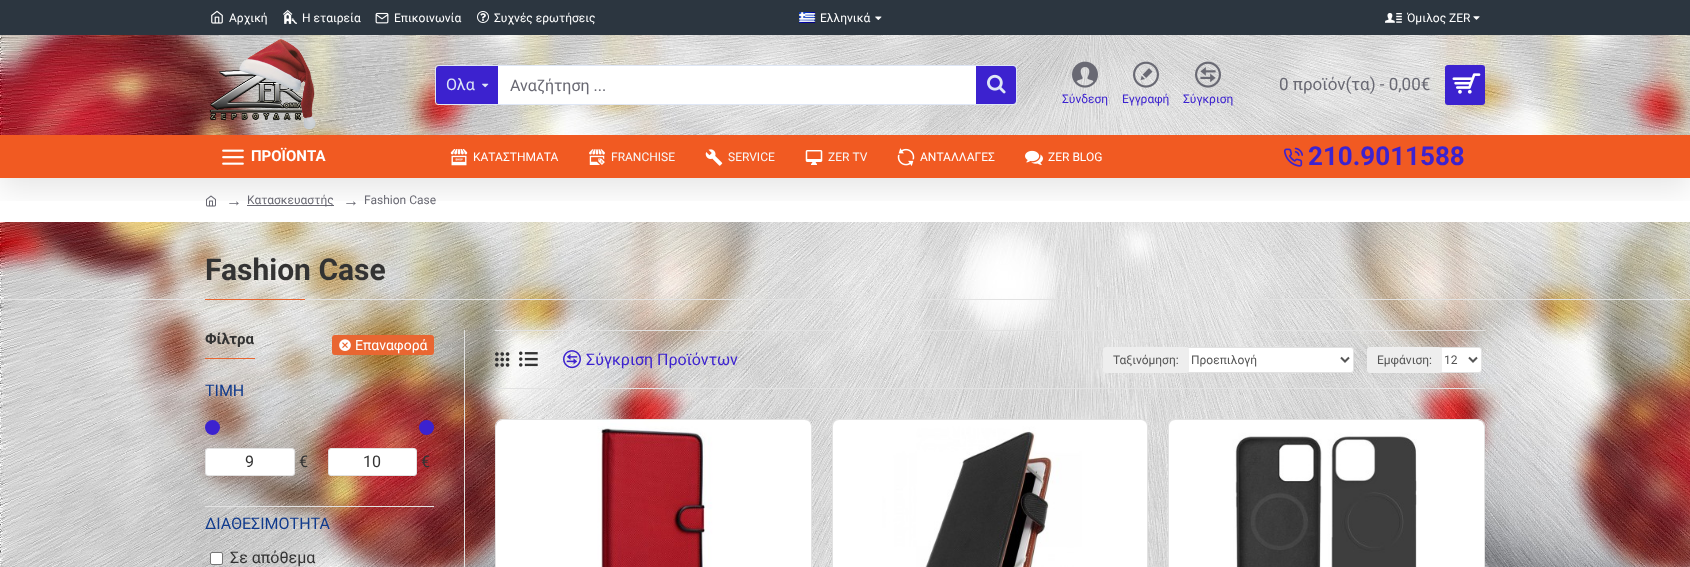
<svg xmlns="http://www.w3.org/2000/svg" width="1690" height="567">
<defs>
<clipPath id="clip1"><rect x="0" y="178" width="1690" height="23"/></clipPath>
</defs>
<rect width="100%" height="100%" fill="#fff"/>
<image x="0" y="35" width="1690" height="532" href="media/1.png"/>
<rect y="178" width="1690" height="44" fill="#fff"/>
<image x="206" y="195" width="10" height="12" href="media/25.png"/>
<rect x="247" y="205" width="87" height="1" fill="#696973"/>
<g clip-path="url(#clip1)">
<rect y="10" width="1690" height="178" fill="#0000001a" filter="blur(15px)"/>
</g>
<rect width="1690" height="35" fill="#2c3640"/>
<image x="211" y="10" width="12" height="14" href="media/2.png"/>
<text x="229" y="22" style="font-family:Roboto;font-size:12px;fill:#fff">Αρχική</text>
<image x="283" y="9" width="14" height="15" href="media/3.png"/>
<text x="302" y="22" style="font-family:Roboto;font-size:12px;fill:#fff">Η εταιρεία</text>
<image x="375" y="12" width="14" height="12" href="media/4.png"/>
<text x="394" y="22" style="font-family:Roboto;font-size:12px;fill:#fff">Επικοινωνία</text>
<image x="477" y="11" width="12" height="12" href="media/5.png"/>
<text x="494" y="22" style="font-family:Roboto;font-size:12px;fill:#fff">Συχνές ερωτήσεις</text>
<image x="799" y="12" width="17" height="11" href="media/6.png"/>
<text x="820" y="22" style="font-family:Roboto;font-size:12px;fill:#fff">Ελληνικά</text>
<image x="875" y="16" width="7" height="4" href="media/7.png"/>
<image x="1385" y="13" width="17" height="10" href="media/8.png"/>
<text x="1407" y="22" style="font-family:Roboto;font-size:12px;fill:#fff">Όμιλος ZER</text>
<image x="1473" y="16" width="7" height="4" href="media/9.png"/>
<image x="210" y="39" width="106" height="91" href="media/10.png"/>
<rect x="435.5" y="65.5" width="581" height="39" rx="2.5" fill="none" stroke="#dfe7f6"/>
<path d="M439 66h59v38h-59c-1.5 0-3-1.5-3-3v-32c0-1.5 1.5-3 3-3z" fill="#3c22cf"/>
<text x="446" y="90" style="font-family:Roboto;font-size:16px;fill:#dfe7f6">Ολα</text>
<image x="482" y="83" width="7" height="5" href="media/11.png"/>
<rect x="498" y="66" width="478" height="38" fill="#fff"/>
<text x="510" y="91" style="font-family:Roboto;font-size:16px;fill:#696973">Αναζήτηση ...</text>
<path d="M976 66h37c1.5 0 3 1.5 3 3v32c0 1.5-1.5 3-3 3h-37z" fill="#3c22cf"/>
<image x="987" y="74" width="19" height="20" href="media/12.png"/>
<text x="1279" y="90" style="font-family:Roboto;font-size:17px;fill:#696973">0 προϊόν(τα) - 0,00€</text>
<rect x="1445" y="65" width="40" height="40" rx="3" fill="#3c22cf"/>
<image x="1452" y="73" width="29" height="21" href="media/13.png"/>
<image x="1072" y="61" width="26" height="27" href="media/14.png"/>
<text x="1062" y="103" style="font-family:Roboto;font-size:12px;fill:#3c22cf">Σύνδεση</text>
<image x="1133" y="61" width="26" height="27" href="media/15.png"/>
<text x="1122" y="103" style="font-family:Roboto;font-size:12px;fill:#3c22cf">Εγγραφή</text>
<image x="1195" y="61" width="26" height="27" href="media/16.png"/>
<text x="1183" y="103" style="font-family:Roboto;font-size:12px;fill:#3c22cf">Σύγκριση</text>
<rect y="135" width="1690" height="43" fill="#f15a22"/>
<image x="222" y="149" width="22" height="16" href="media/17.png"/>
<text x="251" y="161" style="font-family:Roboto;font-size:15px;font-weight:bold;fill:#fff">ΠΡΟΪΟΝΤΑ</text>
<image x="450" y="149" width="18" height="17" href="media/18.png"/>
<text x="473" y="161" style="font-family:Roboto;font-size:12px;fill:#fff">ΚΑΤΑΣΤΗΜΑΤΑ</text>
<image x="589" y="149" width="16" height="16" href="media/19.png"/>
<text x="611" y="161" style="font-family:Roboto;font-size:12px;fill:#f8f8f8">FRANCHISE</text>
<image x="705" y="149" width="18" height="17" href="media/20.png"/>
<text x="728" y="161" style="font-family:Roboto;font-size:12px;fill:#f8f8f8">SERVICE</text>
<image x="805" y="150" width="18" height="15" href="media/21.png"/>
<text x="828" y="161" style="font-family:Roboto;font-size:12px;fill:#f8f8f8">ZER TV</text>
<image x="897" y="148" width="18" height="18" href="media/22.png"/>
<text x="920" y="161" style="font-family:Roboto;font-size:12px;fill:#fff">ΑΝΤΑΛΛΑΓΕΣ</text>
<image x="1025" y="150" width="18" height="15" href="media/23.png"/>
<text x="1048" y="161" style="font-family:Roboto;font-size:12px;fill:#fff">ZER BLOG</text>
<image x="1283" y="147" width="20" height="20" href="media/24.png"/>
<text x="1308" y="165" style="font-family:Roboto;font-size:26px;font-weight:bold;fill:#3c22cf">210.9011588</text>
<text x="226" y="206" style="font-family:Liberation Serif;font-size:16px;fill:#696973">→</text>
<text x="247" y="204" style="font-family:Roboto;font-size:12px;fill:#696973">Κατασκευαστής</text>
<text x="343" y="206" style="font-family:Liberation Serif;font-size:16px;fill:#696973">→</text>
<text x="364" y="204" style="font-family:Roboto;font-size:12px;fill:#696973">Fashion Case</text>
<rect y="299" width="1690" height="1" fill="#e2e2e2"/>
<text x="205" y="280" style="font-family:Roboto;font-size:30px;font-weight:bold;fill:#333">Fashion Case</text>
<rect x="205" y="299" width="100" height="1" fill="#e96631"/>
<rect x="464" y="330" width="1" height="237" fill="#e2e2e2"/>
<text x="205" y="344" style="font-family:Roboto;font-size:15px;font-weight:bold;fill:#333">Φίλτρα</text>
<rect x="332" y="335" width="102" height="20" rx="3" fill="#e96631"/>
<image x="339" y="339" width="12" height="12" href="media/26.png"/>
<text x="355" y="350" style="font-family:Roboto;font-size:14px;fill:#fff">Επαναφορά</text>
<rect x="205" y="358" width="50" height="1" fill="#e96631"/>
<text x="205" y="396" style="font-family:Roboto;font-size:16px;fill:#0f3a8d">ΤΙΜΗ</text>
<circle cx="212.5" cy="427.5" r="7.5" fill="#3c22cf"/>
<circle cx="426.5" cy="427.5" r="7.5" fill="#3c22cf"/>
<rect x="205.5" y="448.5" width="89" height="27" rx="2.5" fill="#fff" stroke="#e2e2e2"/>
<text x="245" y="467" style="font-family:Roboto;font-size:16px;fill:#333">9</text>
<text x="299" y="467" style="font-family:Roboto;font-size:16px;fill:#333">€</text>
<rect x="328.5" y="448.5" width="88" height="27" rx="2.5" fill="#fff" stroke="#e2e2e2"/>
<text x="363" y="467" style="font-family:Roboto;font-size:16px;fill:#333">10</text>
<text x="421" y="467" style="font-family:Roboto;font-size:16px;fill:#333">€</text>
<rect x="205" y="506" width="229" height="1" fill="#e2e2e2"/>
<text x="205" y="529" style="font-family:Roboto;font-size:16px;fill:#0f3a8d">ΔΙΑΘΕΣΙΜΟΤΗΤΑ</text>
<rect x="210.5" y="552.5" width="12" height="12" rx="1.5" fill="#fff" stroke="#767676"/>
<text x="230" y="563" style="font-family:Roboto;font-size:16px;fill:#333">Σε απόθεμα</text>
<rect x="495" y="330" width="990" height="1" fill="#e2e2e2"/>
<rect x="495" y="388" width="990" height="1" fill="#e2e2e2"/>
<image x="495" y="352" width="15" height="15" href="media/27.png"/>
<image x="519" y="351" width="19" height="16" href="media/28.png"/>
<image x="563" y="350" width="18" height="19" href="media/29.png"/>
<text x="586" y="365" style="font-family:Roboto;font-size:16px;fill:#3c22cf">Σύγκριση Προϊόντων</text>
<rect x="1186.5" y="347.5" width="167" height="25" rx="2.5" fill="#fff" stroke="#e2e2e2"/>
<rect x="1103" y="347" width="86" height="26" rx="3" fill="#eee"/>
<text x="1113" y="364" style="font-family:Roboto;font-size:12px;fill:#555">Ταξινόμηση:</text>
<path d="M1341 357.5l4 4l4-4" fill="none" stroke="#555" stroke-width="2"/>
<text x="1191" y="364" style="font-family:Roboto;font-size:12px;fill:#555">Προεπιλογή</text>
<rect x="1439.5" y="347.5" width="42" height="25" rx="2.5" fill="#fff" stroke="#e2e2e2"/>
<rect x="1367" y="347" width="75" height="26" rx="3" fill="#eee"/>
<text x="1377" y="364" style="font-family:Roboto;font-size:12px;fill:#555">Εμφάνιση:</text>
<path d="M1469 357.5l4 4l4-4" fill="none" stroke="#555" stroke-width="2"/>
<text x="1444" y="364" style="font-family:Roboto;font-size:12px;fill:#555">12</text>
<rect x="495.5" y="419.5" width="316" height="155" rx="6.5" fill="none" stroke="#e2e2e2"/>
<image x="496" y="420" width="315" height="147" href="media/30.png"/>
<rect x="832.5" y="419.5" width="315" height="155" rx="6.5" fill="none" stroke="#e2e2e2"/>
<image x="833" y="420" width="314" height="147" href="media/31.png"/>
<rect x="1168.5" y="419.5" width="316" height="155" rx="6.5" fill="none" stroke="#e2e2e2"/>
<image x="1169" y="420" width="315" height="147" href="media/32.png"/>
</svg>
